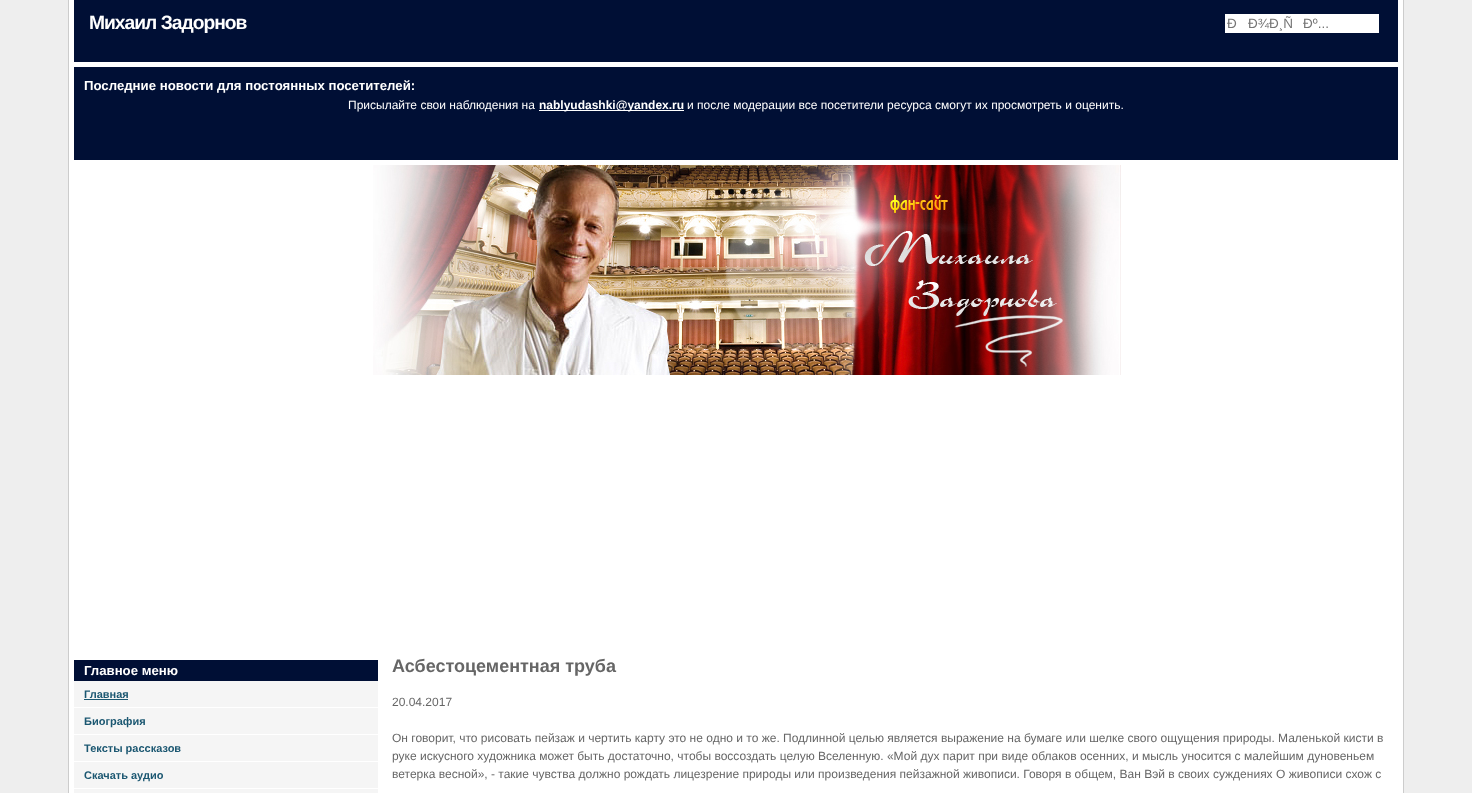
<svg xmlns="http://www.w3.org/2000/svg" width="1472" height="793">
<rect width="100%" height="100%" fill="#eee"/>
<rect x="68.5" y="-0.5" width="1335" height="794" fill="#fff" stroke="#ccc"/>
<rect x="74" width="1324" height="62" fill="#000f35"/>
<text x="89" y="29" style="font-family:Liberation Sans;font-size:19.25px;font-weight:bold;letter-spacing:-1px;fill:#fff">Михаил Задорнов</text>
<rect x="1225" y="14" width="154" height="19" fill="#fff"/>
<text x="1227" y="28" style="font-family:Liberation Sans;font-size:13.5px;fill:#757575">Ð</text>
<text x="1248" y="28" style="font-family:Liberation Sans;font-size:13.5px;fill:#757575">Ð¾Ð¸Ñ</text>
<text x="1303" y="28" style="font-family:Liberation Sans;font-size:13.5px;fill:#757575">Ðº...</text>
<rect x="74" y="67" width="1324" height="93" fill="#000f35"/>
<text x="84" y="90" style="font-family:Liberation Sans;font-size:13.2px;font-weight:bold;fill:#fff">Последние новости для постоянных посетителей:</text>
<text x="348" y="109" style="font-family:Liberation Sans;font-size:12px;fill:#fff">Присылайте свои наблюдения на</text>
<rect x="539" y="110" width="145" height="1" fill="#fff"/>
<text x="539" y="109" style="font-family:Liberation Sans;font-size:12px;font-weight:bold;fill:#fff">nablyudashki@yandex.ru</text>
<text x="687" y="109" style="font-family:Liberation Sans;font-size:12px;fill:#fff">и после модерации все посетители ресурса смогут их просмотреть и оценить.</text>
<image x="373" y="165" width="748" height="210" href="media/1.png"/>
<rect x="74" y="660" width="304" height="21" fill="#000f35"/>
<text x="84" y="675" style="font-family:Liberation Sans;font-size:13.2px;font-weight:bold;fill:#fff">Главное меню</text>
<rect x="74" y="681" width="304" height="26" fill="#f5f5f5"/>
<text x="84" y="698" style="font-family:Liberation Sans;font-size:11px;font-weight:bold;fill:#1b5771">Главная</text>
<rect x="84" y="699" width="44" height="1" fill="#1b5771"/>
<rect x="74" y="708" width="304" height="26" fill="#f5f5f5"/>
<text x="84" y="725" style="font-family:Liberation Sans;font-size:11px;font-weight:bold;fill:#1b5771">Биография</text>
<rect x="74" y="735" width="304" height="26" fill="#f5f5f5"/>
<text x="84" y="752" style="font-family:Liberation Sans;font-size:11px;font-weight:bold;fill:#1b5771">Тексты рассказов</text>
<rect x="74" y="762" width="304" height="26" fill="#f5f5f5"/>
<text x="84" y="779" style="font-family:Liberation Sans;font-size:11px;font-weight:bold;fill:#1b5771">Скачать аудио</text>
<rect x="74" y="789" width="304" height="4" fill="#f5f5f5"/>
<text x="392" y="672" style="font-family:Liberation Sans;font-size:18px;font-weight:bold;fill:#666">Асбестоцементная труба</text>
<text x="392" y="706" style="font-family:Liberation Sans;font-size:12px;fill:#666">20.04.2017</text>
<text x="392" y="742" style="font-family:Liberation Sans;font-size:12px;fill:#666">Он говорит, что рисовать пейзаж и чертить карту это не одно и то же. Подлинной целью является выражение на бумаге или шелке свого ощущения природы. Маленькой кисти в</text>
<text x="392" y="760" style="font-family:Liberation Sans;font-size:12px;fill:#666">руке искусного художника может быть достаточно, чтобы воссоздать целую Вселенную. «Мой дух парит при виде облаков осенних, и мысль уносится с малейшим дуновеньем</text>
<text x="392" y="778" style="font-family:Liberation Sans;font-size:12px;fill:#666">ветерка весной», - такие чувства должно рождать лицезрение природы или произведения пейзажной живописи. Говоря в общем, Ван Вэй в своих суждениях О живописи схож с</text>
</svg>
